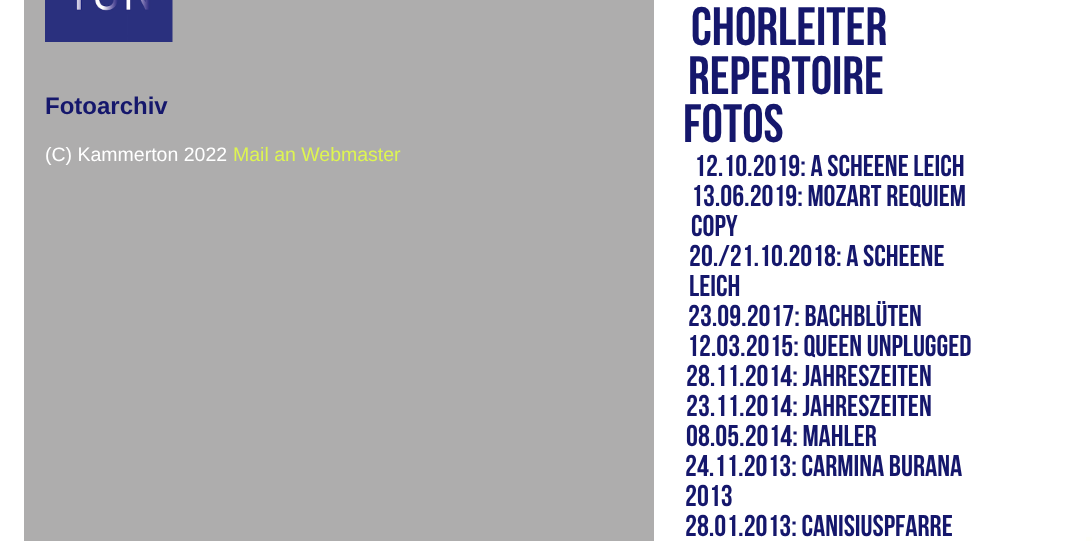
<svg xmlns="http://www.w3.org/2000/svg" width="1092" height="541">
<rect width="100%" height="100%" fill="#fff"/>
<rect x="24" width="630" height="541" fill="#aeadad"/>
<text x="691" y="45" style="font-family:Bebas Neue;font-size:54px;fill:#15176c">CHORLEITER</text>
<text x="688" y="94" style="font-family:Bebas Neue;font-size:54px;fill:#15176c">REPERTOIRE</text>
<text x="683" y="142" style="font-family:Bebas Neue;font-size:54px;fill:#15176c">FOTOS</text>
<text x="694" y="176" style="font-family:Bebas Neue;font-size:30px;fill:#15176c">12.10.2019: A SCHEENE LEICH</text>
<text x="691" y="206" style="font-family:Bebas Neue;font-size:30px;fill:#15176c">13.06.2019: MOZART REQUIEM</text>
<text x="691" y="236" style="font-family:Bebas Neue;font-size:30px;fill:#15176c">COPY</text>
<text x="689" y="266" style="font-family:Bebas Neue;font-size:30px;fill:#15176c">20./21.10.2018: A SCHEENE</text>
<text x="689" y="296" style="font-family:Bebas Neue;font-size:30px;fill:#15176c">LEICH</text>
<text x="688" y="326" style="font-family:Bebas Neue;font-size:30px;fill:#15176c">23.09.2017: BACHBLÜTEN</text>
<text x="687" y="356" style="font-family:Bebas Neue;font-size:30px;fill:#15176c">12.03.2015: QUEEN UNPLUGGED</text>
<text x="686" y="386" style="font-family:Bebas Neue;font-size:30px;fill:#15176c">28.11.2014: JAHRESZEITEN</text>
<text x="686" y="416" style="font-family:Bebas Neue;font-size:30px;fill:#15176c">23.11.2014: JAHRESZEITEN</text>
<text x="686" y="446" style="font-family:Bebas Neue;font-size:30px;fill:#15176c">08.05.2014: MAHLER</text>
<text x="685" y="476" style="font-family:Bebas Neue;font-size:30px;fill:#15176c">24.11.2013: CARMINA BURANA</text>
<text x="685" y="506" style="font-family:Bebas Neue;font-size:30px;fill:#15176c">2013</text>
<text x="685" y="536" style="font-family:Bebas Neue;font-size:30px;fill:#15176c">28.01.2013: CANISIUSPFARRE</text>
<image x="45" y="0" width="128" height="42" href="media/1.png"/>
<text x="45" y="114" style="font-family:Liberation Sans;font-size:24px;font-weight:bold;fill:#15176c">Fotoarchiv</text>
<text x="45" y="161" style="font-family:Liberation Sans;font-size:19.5px;fill:#fff">(C) Kammerton 2022</text>
<text x="233" y="161" style="font-family:Liberation Sans;font-size:19.5px;fill:#def551">Mail an Webmaster</text>
<rect x="1086" y="537" width="6" height="4" fill="#fffffa"/>
</svg>
